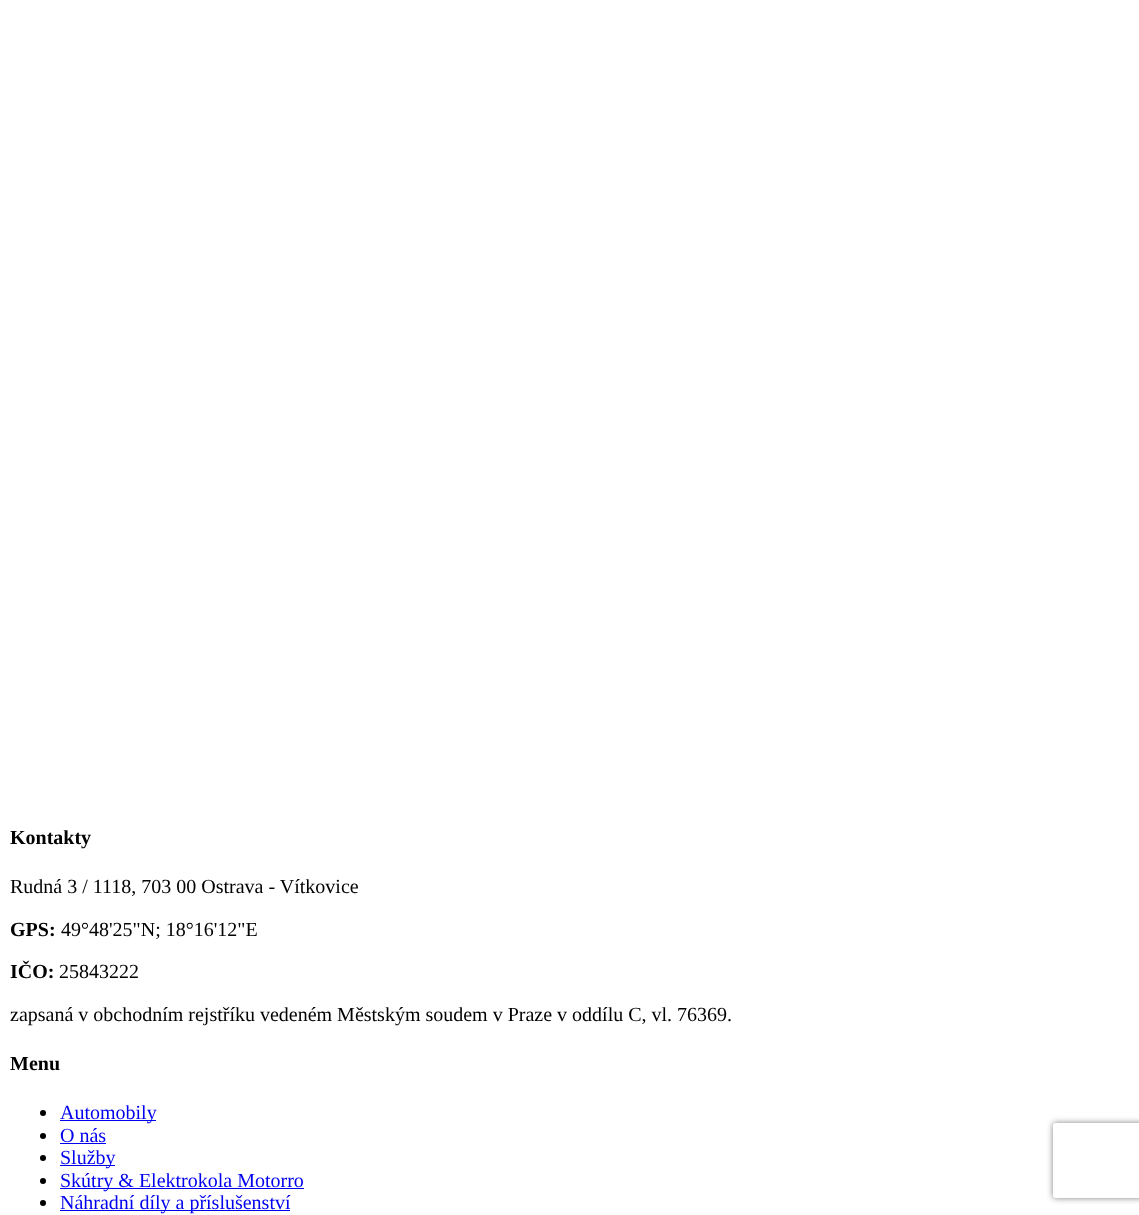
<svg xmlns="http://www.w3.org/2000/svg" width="1139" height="1215">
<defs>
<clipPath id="clip1"><path d="M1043 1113h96v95h-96zm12.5 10h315c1.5 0 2.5 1 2.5 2.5v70c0 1.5-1 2.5-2.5 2.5h-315c-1.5 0-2.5-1-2.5-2.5v-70c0-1.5 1-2.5 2.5-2.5z" clip-rule="evenodd"/></clipPath>
</defs>
<rect width="100%" height="100%" fill="#fff"/>
<text x="10" y="844" style="font-family:Liberation Serif;font-size:20px;font-weight:bold;fill:#000">Kontakty</text>
<text x="10" y="893" style="font-family:Liberation Serif;font-size:20px;fill:#000">Rudná 3 / 1118, 703 00 Ostrava - Vítkovice</text>
<text x="10" y="936" style="font-family:Liberation Serif;font-size:20px;font-weight:bold;fill:#000">GPS:</text>
<text x="61" y="936" style="font-family:Liberation Serif;font-size:20px;fill:#000">49°48'25"N; 18°16'12"E</text>
<text x="10" y="978" style="font-family:Liberation Serif;font-size:20px;font-weight:bold;fill:#000">IČO:</text>
<text x="59" y="978" style="font-family:Liberation Serif;font-size:20px;fill:#000">25843222</text>
<text x="10" y="1021" style="font-family:Liberation Serif;font-size:20px;fill:#000">zapsaná v obchodním rejstříku vedeném Městským soudem v Praze v oddílu C, vl. 76369.</text>
<text x="10" y="1070" style="font-family:Liberation Serif;font-size:20px;font-weight:bold;fill:#000">Menu</text>
<circle cx="43" cy="1113" r="3" fill="#000"/>
<rect x="60" y="1120" width="96" height="1" fill="#00e"/>
<text x="60" y="1119" style="font-family:Liberation Serif;font-size:20px;fill:#00e">Automobily</text>
<circle cx="43" cy="1136" r="3" fill="#000"/>
<text x="60" y="1142" style="font-family:Liberation Serif;font-size:20px;fill:#00e">O nás</text>
<rect x="60" y="1143" width="46" height="1" fill="#00e"/>
<circle cx="43" cy="1158" r="3" fill="#000"/>
<rect x="60" y="1165" width="55" height="1" fill="#00e"/>
<text x="60" y="1164" style="font-family:Liberation Serif;font-size:20px;fill:#00e">Služby</text>
<circle cx="43" cy="1181" r="3" fill="#000"/>
<rect x="60" y="1188" width="244" height="1" fill="#00e"/>
<text x="60" y="1187" style="font-family:Liberation Serif;font-size:20px;fill:#00e">Skútry &amp; Elektrokola Motorro</text>
<circle cx="43" cy="1203" r="3" fill="#000"/>
<rect x="60" y="1210" width="230" height="1" fill="#00e"/>
<text x="60" y="1209" style="font-family:Liberation Serif;font-size:20px;fill:#00e">Náhradní díly a příslušenství</text>
<g clip-path="url(#clip1)">
<rect x="1053" y="1123" width="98" height="75" rx="2.5" fill="#808080" filter="blur(3px)"/>
</g>
</svg>
